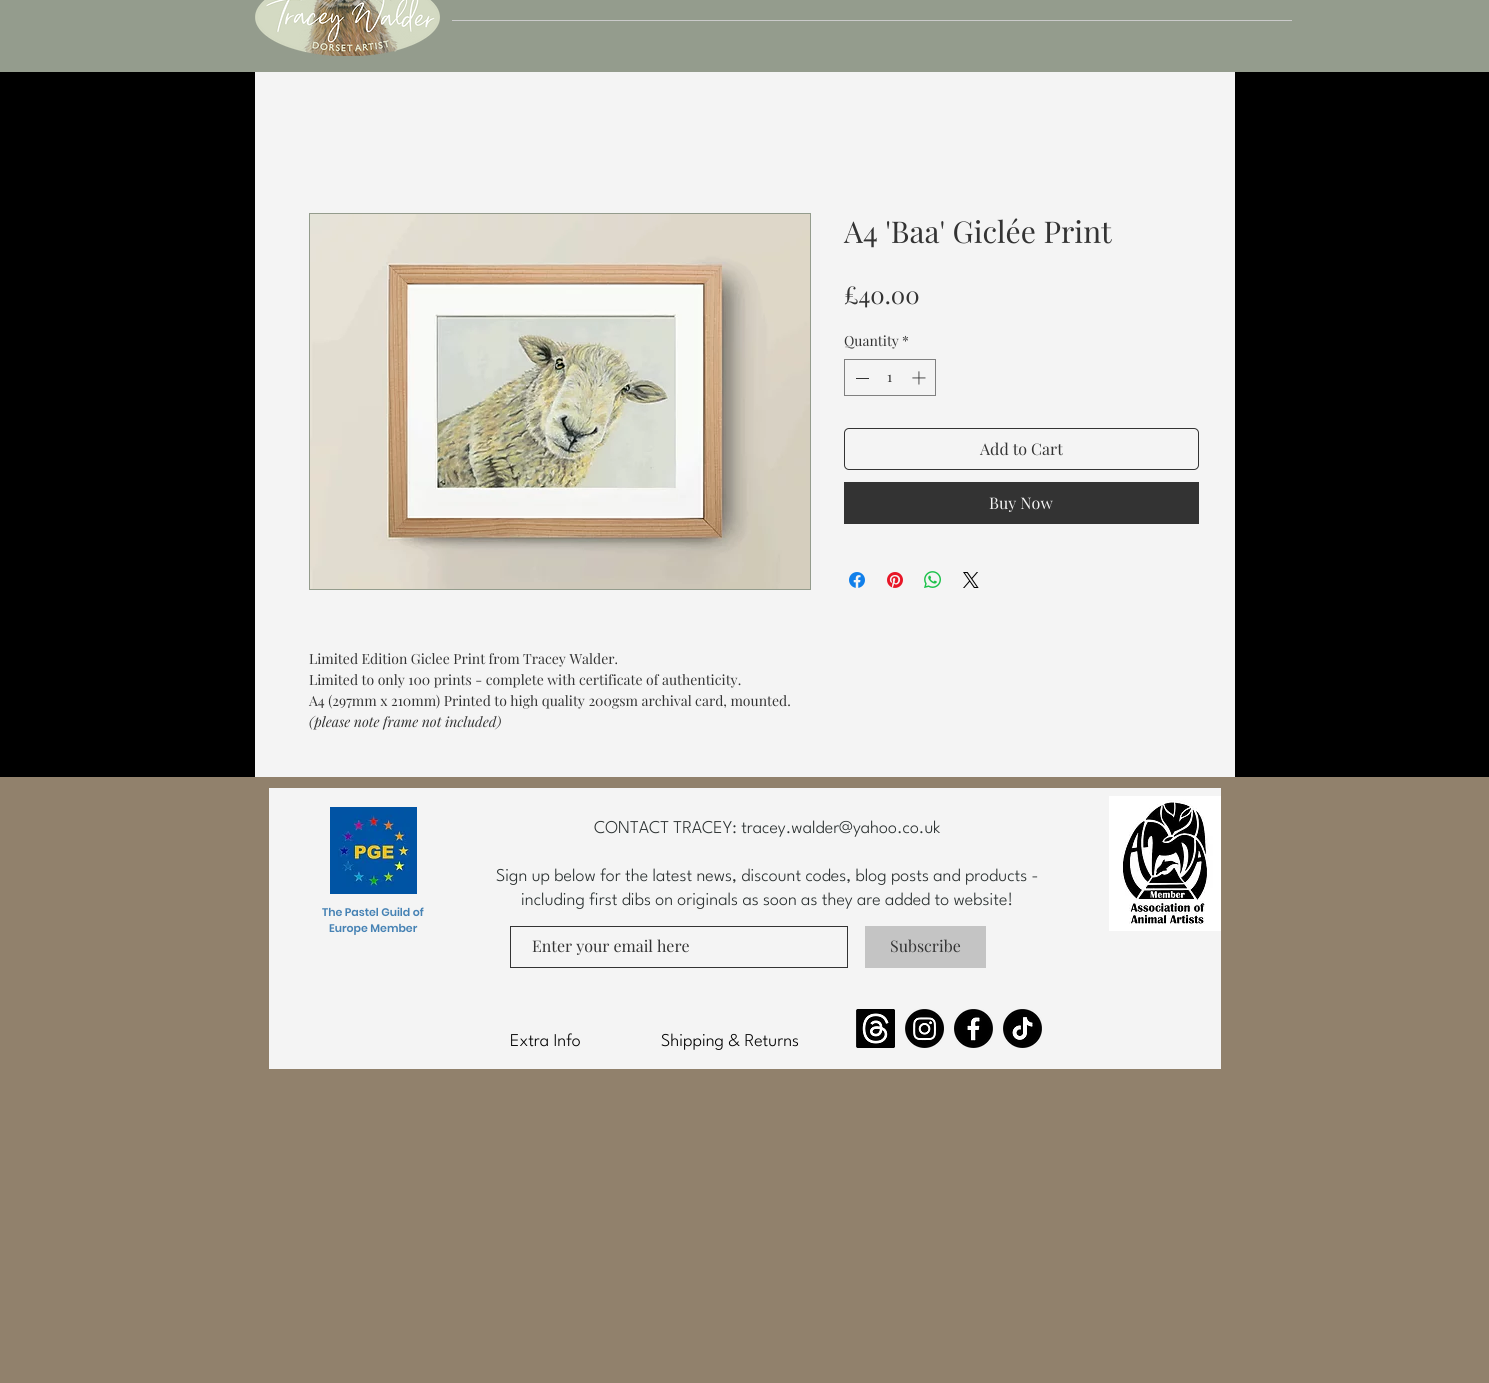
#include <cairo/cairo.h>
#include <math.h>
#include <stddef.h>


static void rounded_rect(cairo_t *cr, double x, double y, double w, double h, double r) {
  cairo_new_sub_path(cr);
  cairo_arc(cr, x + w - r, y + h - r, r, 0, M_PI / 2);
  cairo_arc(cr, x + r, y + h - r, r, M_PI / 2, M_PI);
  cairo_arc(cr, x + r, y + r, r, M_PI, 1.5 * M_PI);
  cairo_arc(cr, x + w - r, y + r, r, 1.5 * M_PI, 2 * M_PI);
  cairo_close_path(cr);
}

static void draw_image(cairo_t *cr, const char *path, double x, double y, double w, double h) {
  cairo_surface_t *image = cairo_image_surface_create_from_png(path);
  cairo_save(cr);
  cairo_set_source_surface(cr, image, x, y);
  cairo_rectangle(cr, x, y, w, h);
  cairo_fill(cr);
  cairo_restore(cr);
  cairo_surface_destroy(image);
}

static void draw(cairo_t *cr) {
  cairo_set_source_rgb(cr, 0, 0, 0);
  cairo_paint(cr);
  cairo_set_source_rgb(cr, 148 / 255.0, 156 / 255.0, 141 / 255.0);
  cairo_rectangle(cr, 0, 0, 1489, 72);
  cairo_fill(cr);
  draw_image(cr, "images/1.png", 255, 0, 185, 56);
  cairo_set_source_rgb(cr, 202 / 255.0, 202 / 255.0, 202 / 255.0);
  cairo_rectangle(cr, 452, 20, 840, 1);
  cairo_fill(cr);
  cairo_set_source_rgb(cr, 244 / 255.0, 244 / 255.0, 244 / 255.0);
  cairo_rectangle(cr, 255, 72, 980, 705);
  cairo_fill(cr);
  cairo_rectangle(cr, 844.5, 359.5, 91, 36);
  cairo_set_source_rgb(cr, 128 / 255.0, 128 / 255.0, 128 / 255.0);
  cairo_set_line_width(cr, 1);
  cairo_stroke(cr);
  cairo_set_source_rgb(cr, 51 / 255.0, 51 / 255.0, 51 / 255.0);
  cairo_rectangle(cr, 856, 378, 13, 1);
  cairo_fill(cr);
  draw_image(cr, "images/2.png", 912, 371, 14, 14);
  rounded_rect(cr, 844.5, 428.5, 354, 41, 4.5);
  cairo_stroke(cr);
  cairo_rectangle(cr, 844, 482, 355, 42);
  cairo_fill(cr);
  draw_image(cr, "images/3.png", 849, 572, 16, 16);
  draw_image(cr, "images/4.png", 887, 572, 16, 16);
  draw_image(cr, "images/5.png", 924, 571, 17, 17);
  draw_image(cr, "images/6.png", 963, 572, 16, 16);
  cairo_rectangle(cr, 309.5, 213.5, 501, 376);
  cairo_set_source_rgb(cr, 148 / 255.0, 156 / 255.0, 141 / 255.0);
  cairo_stroke(cr);
  draw_image(cr, "images/7.png", 310, 214, 500, 375);
  cairo_set_source_rgb(cr, 145 / 255.0, 129 / 255.0, 108 / 255.0);
  cairo_rectangle(cr, 0, 777, 1489, 606);
  cairo_fill(cr);
  cairo_set_source_rgb(cr, 244 / 255.0, 244 / 255.0, 244 / 255.0);
  cairo_rectangle(cr, 269, 788, 952, 281);
  cairo_fill(cr);
  draw_image(cr, "images/8.png", 330, 807, 87, 87);
  draw_image(cr, "images/9.png", 1109, 796, 112, 135);
  cairo_rectangle(cr, 510.5, 926.5, 337, 41);
  cairo_set_source_rgb(cr, 51 / 255.0, 51 / 255.0, 51 / 255.0);
  cairo_stroke(cr);
  cairo_set_source_rgb(cr, 196 / 255.0, 196 / 255.0, 196 / 255.0);
  cairo_rectangle(cr, 865, 926, 121, 42);
  cairo_fill(cr);
  draw_image(cr, "images/10.png", 856, 1009, 39, 39);
  draw_image(cr, "images/11.png", 905, 1009, 39, 39);
  draw_image(cr, "images/12.png", 954, 1009, 39, 39);
  draw_image(cr, "images/13.png", 1003, 1009, 39, 39);
  cairo_select_font_face(cr, "Playfair Display", CAIRO_FONT_SLANT_NORMAL, CAIRO_FONT_WEIGHT_NORMAL);
  cairo_set_font_size(cr, 30);
  cairo_set_source_rgb(cr, 51 / 255.0, 51 / 255.0, 51 / 255.0);
  cairo_move_to(cr, 844, 243);
  cairo_show_text(cr, "A4 'Baa' Giclée Print");
  cairo_set_font_size(cr, 24);
  cairo_move_to(cr, 844, 304);
  cairo_show_text(cr, "£40.00");
  cairo_set_font_size(cr, 14);
  cairo_move_to(cr, 844, 346);
  cairo_show_text(cr, "Quantity");
  cairo_move_to(cr, 902, 346);
  cairo_show_text(cr, "*");
  cairo_move_to(cr, 887, 382);
  cairo_show_text(cr, "1");
  cairo_set_font_size(cr, 16);
  cairo_move_to(cr, 980, 455);
  cairo_show_text(cr, "Add to Cart");
  cairo_set_source_rgb(cr, 244 / 255.0, 244 / 255.0, 244 / 255.0);
  cairo_move_to(cr, 989, 509);
  cairo_show_text(cr, "Buy Now");
  cairo_set_font_size(cr, 14);
  cairo_set_source_rgb(cr, 51 / 255.0, 51 / 255.0, 51 / 255.0);
  cairo_move_to(cr, 309, 664);
  cairo_show_text(cr, "Limited Edition Giclee Print from Tracey Walder.");
  cairo_move_to(cr, 309, 685);
  cairo_show_text(cr, "Limited to only 100 prints - complete with certificate of authenticity.");
  cairo_move_to(cr, 309, 706);
  cairo_show_text(cr, "A4 (297mm x 210mm) Printed to high quality 200gsm archival card, mounted.");
  cairo_select_font_face(cr, "Playfair Display", CAIRO_FONT_SLANT_ITALIC, CAIRO_FONT_WEIGHT_NORMAL);
  cairo_move_to(cr, 309, 727);
  cairo_show_text(cr, "(please note frame not included)");
  cairo_select_font_face(cr, "League Spartan Thin", CAIRO_FONT_SLANT_NORMAL, CAIRO_FONT_WEIGHT_NORMAL);
  cairo_set_font_size(cr, 18);
  cairo_set_source_rgb(cr, 41 / 255.0, 47 / 255.0, 47 / 255.0);
  cairo_move_to(cr, 594, 833);
  cairo_show_text(cr, "CONTACT TRACEY: tracey.walder@yahoo.co.uk");
  cairo_move_to(cr, 496, 881);
  cairo_show_text(cr, "Sign up below for the latest news, discount codes, blog posts and products -");
  cairo_move_to(cr, 521, 905);
  cairo_show_text(cr, "including first dibs on originals as soon as they are added to website!");
  cairo_select_font_face(cr, "Poppins SemiBold", CAIRO_FONT_SLANT_NORMAL, CAIRO_FONT_WEIGHT_NORMAL);
  cairo_set_font_size(cr, 11);
  cairo_set_source_rgb(cr, 70 / 255.0, 130 / 255.0, 180 / 255.0);
  cairo_move_to(cr, 322, 916);
  cairo_show_text(cr, "The Pastel Guild of");
  cairo_move_to(cr, 329, 932);
  cairo_show_text(cr, "Europe Member");
  cairo_select_font_face(cr, "Playfair Display", CAIRO_FONT_SLANT_NORMAL, CAIRO_FONT_WEIGHT_NORMAL);
  cairo_set_font_size(cr, 16);
  cairo_set_source_rgb(cr, 51 / 255.0, 51 / 255.0, 51 / 255.0);
  cairo_move_to(cr, 532, 952);
  cairo_show_text(cr, "Enter your email here");
  cairo_move_to(cr, 890, 952);
  cairo_show_text(cr, "Subscribe");
  cairo_select_font_face(cr, "League Spartan Thin", CAIRO_FONT_SLANT_NORMAL, CAIRO_FONT_WEIGHT_NORMAL);
  cairo_set_font_size(cr, 18);
  cairo_set_source_rgb(cr, 0, 0, 0);
  cairo_move_to(cr, 510, 1046);
  cairo_show_text(cr, "Extra Info");
  cairo_move_to(cr, 661, 1046);
  cairo_show_text(cr, "Shipping & Returns");
}

int main(void) {
  cairo_surface_t *surface = cairo_image_surface_create(CAIRO_FORMAT_RGB24, 1489, 1383);
  cairo_t *cr = cairo_create(surface);
  cairo_font_options_t *options = cairo_font_options_create();
  cairo_font_options_set_hint_metrics(options, CAIRO_HINT_METRICS_OFF);
  cairo_font_options_set_hint_style(options, CAIRO_HINT_STYLE_NONE);
  cairo_set_font_options(cr, options);
  cairo_set_miter_limit(cr, 4);
  draw(cr);
  cairo_surface_write_to_png(surface, "out.png");
  cairo_font_options_destroy(options);
  cairo_destroy(cr);
  cairo_surface_destroy(surface);
  return 0;
}
